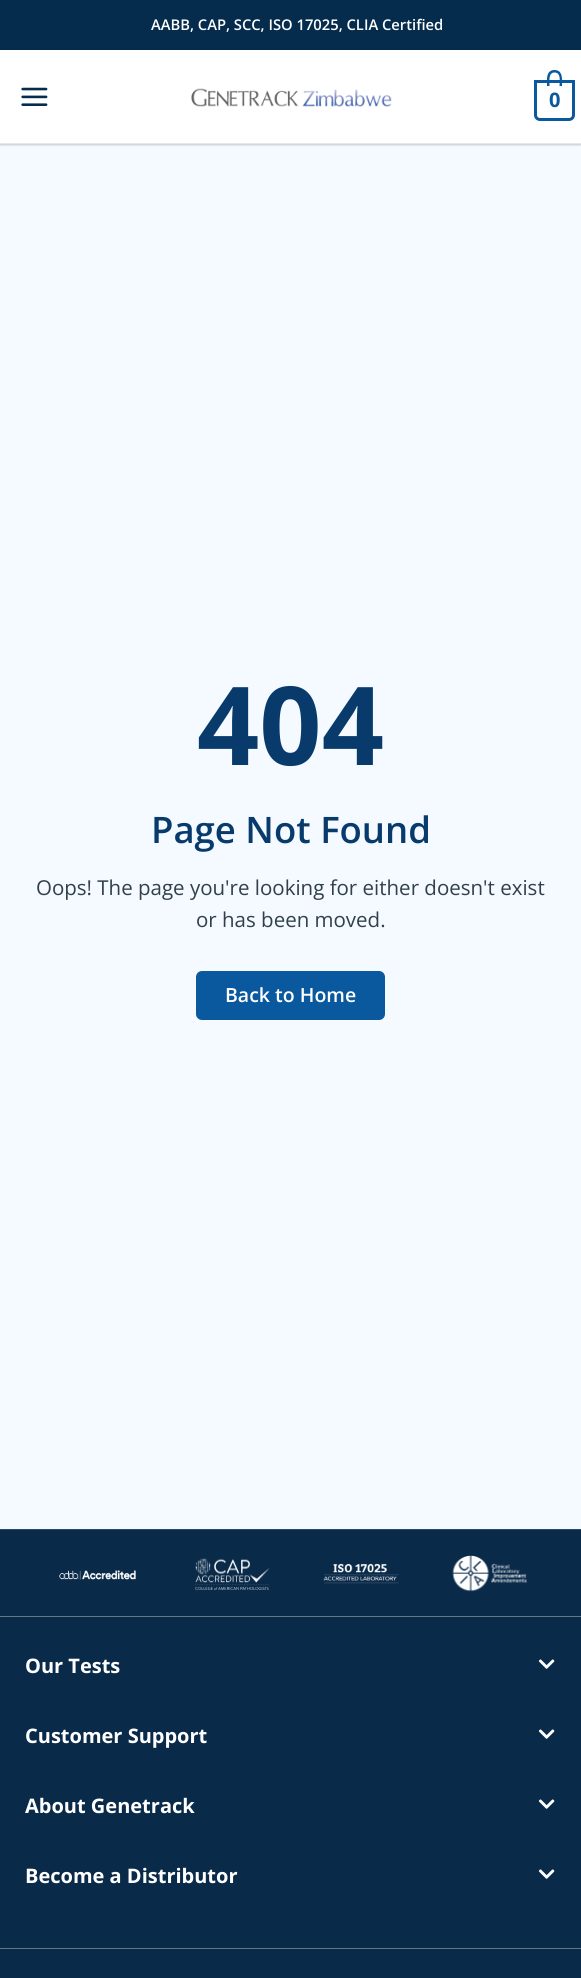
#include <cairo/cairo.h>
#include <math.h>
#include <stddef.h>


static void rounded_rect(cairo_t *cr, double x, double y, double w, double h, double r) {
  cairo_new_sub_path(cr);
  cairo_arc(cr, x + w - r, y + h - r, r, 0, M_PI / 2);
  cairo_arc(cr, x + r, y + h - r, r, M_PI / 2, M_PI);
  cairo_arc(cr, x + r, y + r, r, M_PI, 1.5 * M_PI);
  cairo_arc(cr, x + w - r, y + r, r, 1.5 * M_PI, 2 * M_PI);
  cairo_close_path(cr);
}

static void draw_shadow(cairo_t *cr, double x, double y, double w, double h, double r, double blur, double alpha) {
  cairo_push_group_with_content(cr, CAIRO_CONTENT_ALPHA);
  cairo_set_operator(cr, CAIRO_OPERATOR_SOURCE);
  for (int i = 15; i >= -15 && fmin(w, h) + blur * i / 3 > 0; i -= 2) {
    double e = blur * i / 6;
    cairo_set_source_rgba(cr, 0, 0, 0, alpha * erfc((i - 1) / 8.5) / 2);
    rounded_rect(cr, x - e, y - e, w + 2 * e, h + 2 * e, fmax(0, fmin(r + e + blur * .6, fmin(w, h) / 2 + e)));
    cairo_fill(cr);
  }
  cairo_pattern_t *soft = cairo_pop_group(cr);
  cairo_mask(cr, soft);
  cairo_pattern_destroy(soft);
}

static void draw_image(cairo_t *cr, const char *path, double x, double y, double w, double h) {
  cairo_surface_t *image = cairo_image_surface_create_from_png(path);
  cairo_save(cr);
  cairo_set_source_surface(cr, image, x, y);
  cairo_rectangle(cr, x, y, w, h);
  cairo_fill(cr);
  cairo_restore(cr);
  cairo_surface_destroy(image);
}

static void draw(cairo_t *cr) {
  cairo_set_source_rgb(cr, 244 / 255.0, 250 / 255.0, 1);
  cairo_paint(cr);
  cairo_set_source_rgb(cr, 5 / 255.0, 44 / 255.0, 76 / 255.0);
  cairo_rectangle(cr, 0, 0, 581, 50);
  cairo_fill(cr);
  cairo_set_source_rgb(cr, 0, 0, 0);
  draw_shadow(cr, 0, 51, 581, 94, 0, 1, 0.2);
  cairo_set_source_rgb(cr, 1, 1, 1);
  cairo_rectangle(cr, 0, 50, 581, 93);
  cairo_fill(cr);
  cairo_set_source_rgb(cr, 230 / 255.0, 231 / 255.0, 232 / 255.0);
  cairo_rectangle(cr, 0, 143, 581, 1);
  cairo_fill(cr);
  draw_image(cr, "images/1.png", 21, 87, 27, 19);
  draw_image(cr, "images/2.png", 191, 88, 201, 19);
  cairo_new_path(cr);
  cairo_move_to(cr, 535.5, 81.5);
  cairo_line_to(cr, 573.5, 81.5);
  cairo_line_to(cr, 573.5, 115);
  cairo_curve_to(cr, 573.5, 117.5, 571.5, 119.5, 569, 119.5);
  cairo_line_to(cr, 540, 119.5);
  cairo_curve_to(cr, 537.5, 119.5, 535.5, 117.5, 535.5, 115);
  cairo_close_path(cr);
  cairo_set_source_rgb(cr, 10 / 255.0, 88 / 255.0, 158 / 255.0);
  cairo_set_line_width(cr, 3);
  cairo_stroke(cr);
  cairo_set_fill_rule(cr, CAIRO_FILL_RULE_EVEN_ODD);
  cairo_new_path(cr);
  cairo_move_to(cr, 554.5, 70);
  cairo_curve_to(cr, 563.5, 70, 562, 80.5, 562, 86);
  cairo_line_to(cr, 547, 86);
  cairo_curve_to(cr, 547, 80.5, 545.5, 70, 554.5, 70);
  cairo_close_path(cr);
  cairo_move_to(cr, 554.5, 72.5);
  cairo_curve_to(cr, 561.5, 72.5, 559.5, 82, 559.5, 86);
  cairo_line_to(cr, 549.5, 86);
  cairo_curve_to(cr, 549.5, 82, 548, 72.5, 554.5, 72.5);
  cairo_close_path(cr);
  cairo_fill(cr);
  rounded_rect(cr, 196, 971, 189, 49, 6);
  cairo_fill(cr);
  cairo_set_source_rgb(cr, 10 / 255.0, 42 / 255.0, 73 / 255.0);
  cairo_rectangle(cr, 0, 1530, 581, 86);
  cairo_fill(cr);
  cairo_set_source_rgb(cr, 45 / 255.0, 73 / 255.0, 100 / 255.0);
  cairo_rectangle(cr, 0, 1529, 581, 1);
  cairo_fill(cr);
  draw_image(cr, "images/3.png", 59, 1570, 77, 10);
  draw_image(cr, "images/4.png", 195, 1558, 75, 32);
  draw_image(cr, "images/5.png", 323, 1563, 76, 21);
  draw_image(cr, "images/6.png", 452, 1555, 75, 37);
  cairo_set_source_rgb(cr, 10 / 255.0, 42 / 255.0, 73 / 255.0);
  cairo_rectangle(cr, 0, 1617, 581, 331);
  cairo_fill(cr);
  cairo_set_source_rgb(cr, 97 / 255.0, 119 / 255.0, 140 / 255.0);
  cairo_rectangle(cr, 0, 1616, 581, 1);
  cairo_fill(cr);
  cairo_rectangle(cr, 0, 1948, 581, 1);
  cairo_fill(cr);
  draw_image(cr, "images/7.png", 538, 1659, 17, 10);
  draw_image(cr, "images/7.png", 538, 1729, 17, 10);
  draw_image(cr, "images/7.png", 538, 1799, 17, 10);
  draw_image(cr, "images/7.png", 538, 1869, 17, 10);
  cairo_set_source_rgb(cr, 10 / 255.0, 42 / 255.0, 73 / 255.0);
  cairo_rectangle(cr, 0, 1949, 581, 29);
  cairo_fill(cr);
  cairo_select_font_face(cr, "Open Sans SemiBold", CAIRO_FONT_SLANT_NORMAL, CAIRO_FONT_WEIGHT_NORMAL);
  cairo_set_font_size(cr, 14.75);
  cairo_set_source_rgb(cr, 1, 1, 1);
  cairo_move_to(cr, 151, 30);
  cairo_show_text(cr, "AABB, CAP, SCC, ISO 17025, CLIA Certified");
  cairo_select_font_face(cr, "Open Sans", CAIRO_FONT_SLANT_NORMAL, CAIRO_FONT_WEIGHT_BOLD);
  cairo_set_font_size(cr, 20);
  cairo_set_source_rgb(cr, 10 / 255.0, 88 / 255.0, 158 / 255.0);
  cairo_move_to(cr, 549, 107);
  cairo_show_text(cr, "0");
  cairo_set_font_size(cr, 109);
  cairo_set_source_rgb(cr, 8 / 255.0, 59 / 255.0, 107 / 255.0);
  cairo_move_to(cr, 197, 765);
  cairo_show_text(cr, "404");
  cairo_select_font_face(cr, "Open Sans SemiBold", CAIRO_FONT_SLANT_NORMAL, CAIRO_FONT_WEIGHT_NORMAL);
  cairo_set_font_size(cr, 36.5);
  cairo_move_to(cr, 151, 843);
  cairo_show_text(cr, "Page Not Found");
  cairo_select_font_face(cr, "Open Sans", CAIRO_FONT_SLANT_NORMAL, CAIRO_FONT_WEIGHT_NORMAL);
  cairo_set_font_size(cr, 20.5);
  cairo_set_source_rgb(cr, 50 / 255.0, 64 / 255.0, 74 / 255.0);
  cairo_move_to(cr, 36, 895);
  cairo_show_text(cr, "Oops! The page you're looking for either doesn't exist");
  cairo_move_to(cr, 196, 927);
  cairo_show_text(cr, "or has been moved.");
  cairo_select_font_face(cr, "Open Sans SemiBold", CAIRO_FONT_SLANT_NORMAL, CAIRO_FONT_WEIGHT_NORMAL);
  cairo_set_font_size(cr, 19.5);
  cairo_set_source_rgb(cr, 1, 1, 1);
  cairo_move_to(cr, 225, 1002);
  cairo_show_text(cr, "Back to Home");
  cairo_select_font_face(cr, "Open Sans", CAIRO_FONT_SLANT_NORMAL, CAIRO_FONT_WEIGHT_BOLD);
  cairo_set_font_size(cr, 20);
  cairo_move_to(cr, 25, 1673);
  cairo_show_text(cr, "Our Tests");
  cairo_move_to(cr, 25, 1743);
  cairo_show_text(cr, "Customer Support");
  cairo_move_to(cr, 25, 1813);
  cairo_show_text(cr, "About Genetrack");
  cairo_move_to(cr, 25, 1883);
  cairo_show_text(cr, "Become a Distributor");
}

int main(void) {
  cairo_surface_t *surface = cairo_image_surface_create(CAIRO_FORMAT_RGB24, 581, 1978);
  cairo_t *cr = cairo_create(surface);
  cairo_font_options_t *options = cairo_font_options_create();
  cairo_font_options_set_hint_metrics(options, CAIRO_HINT_METRICS_OFF);
  cairo_font_options_set_hint_style(options, CAIRO_HINT_STYLE_NONE);
  cairo_set_font_options(cr, options);
  cairo_set_miter_limit(cr, 4);
  draw(cr);
  cairo_surface_write_to_png(surface, "out.png");
  cairo_font_options_destroy(options);
  cairo_destroy(cr);
  cairo_surface_destroy(surface);
  return 0;
}
